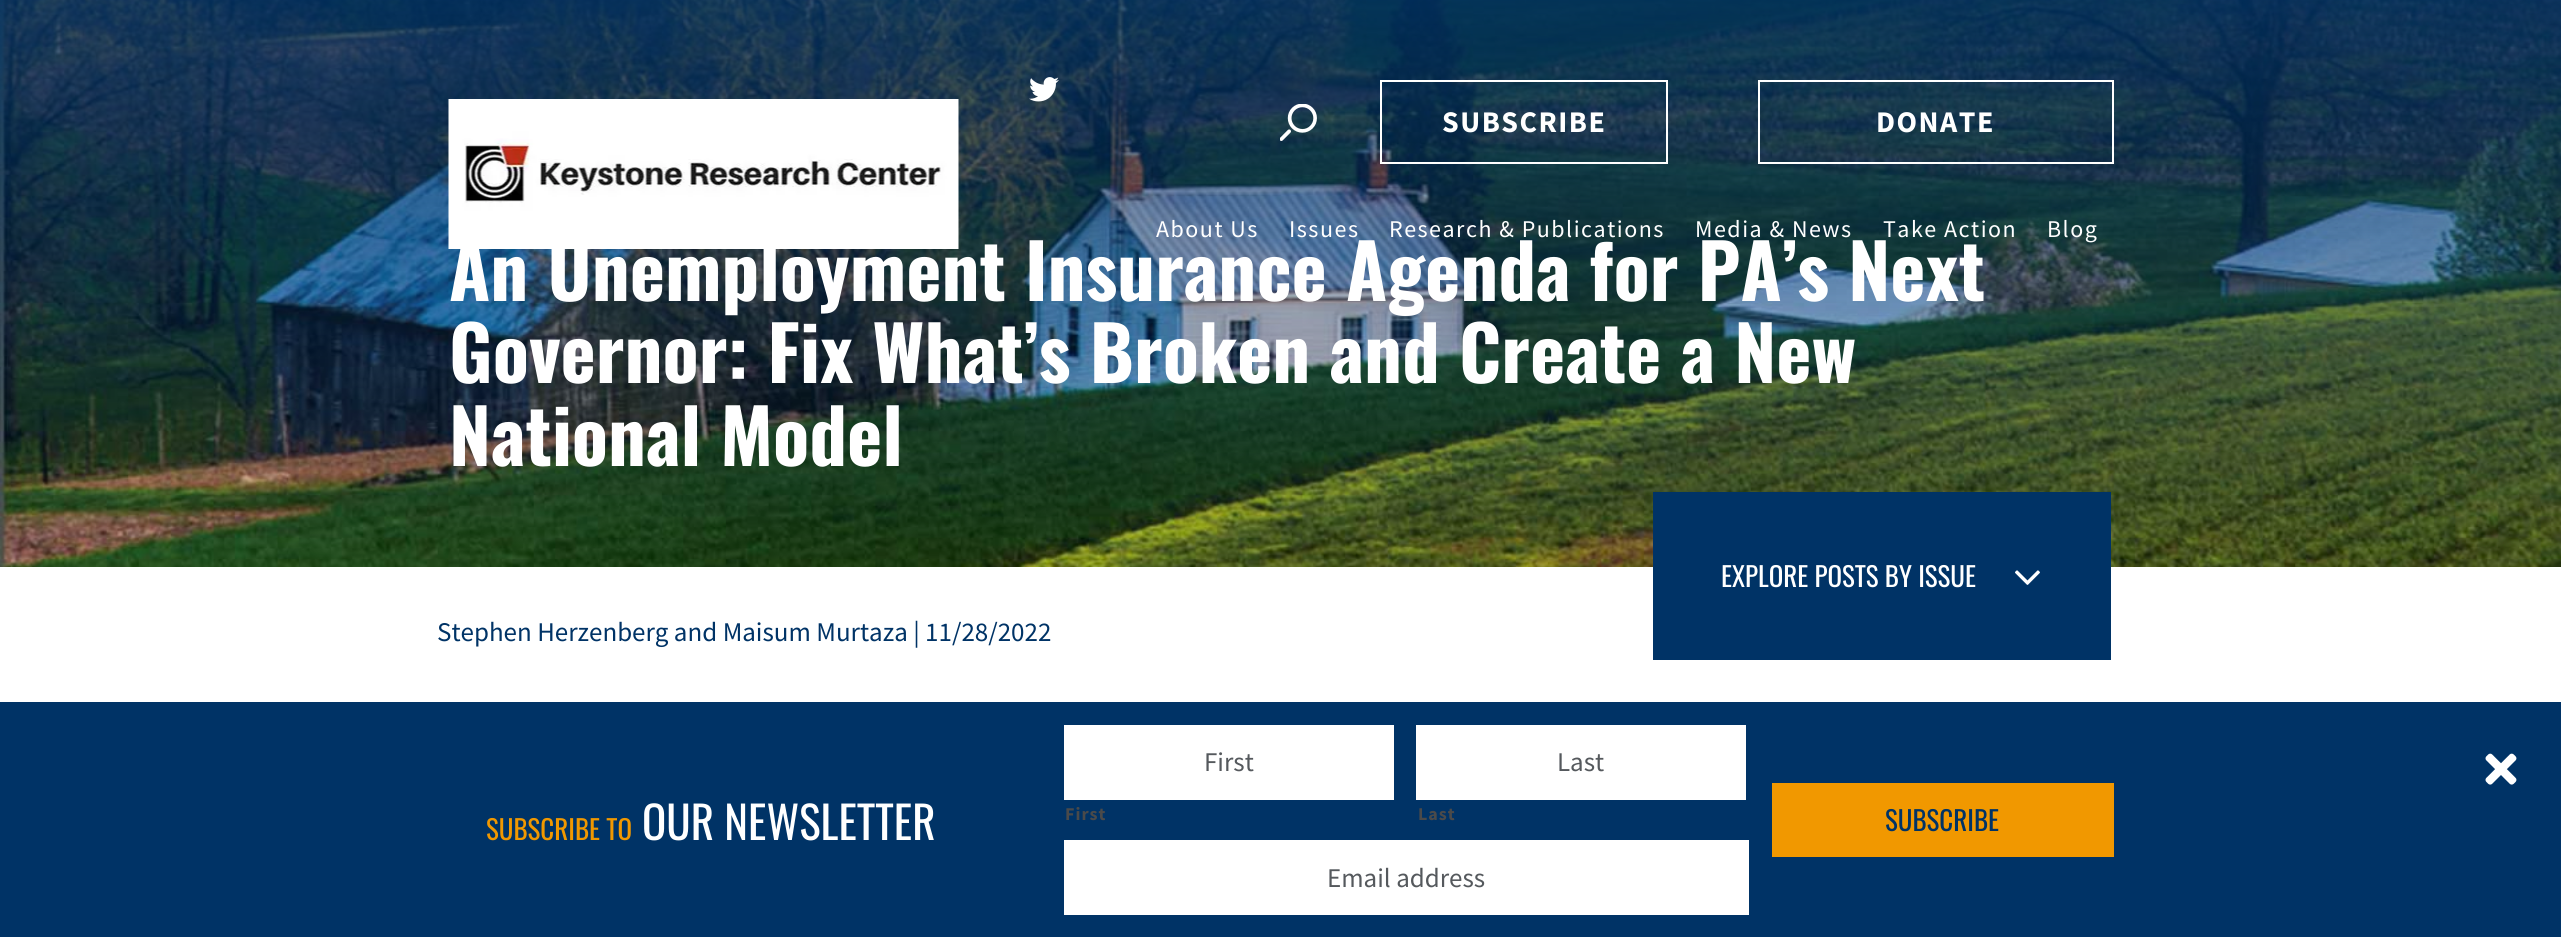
#include <cairo/cairo.h>
#include <math.h>
#include <stddef.h>


static void draw_spaced(cairo_t *cr, double x, double y, const char *s, double letter, double word) {
  cairo_move_to(cr, x, y);
  while (*s) {
    char ch[5] = {0};
    int n = 0;
    do ch[n++] = *s++; while ((*s & 0xC0) == 0x80);
    cairo_show_text(cr, ch);
    cairo_rel_move_to(cr, letter + word * (*ch == ' '), 0);
  }
}

static void draw_image(cairo_t *cr, const char *path, double x, double y, double w, double h) {
  cairo_surface_t *image = cairo_image_surface_create_from_png(path);
  cairo_save(cr);
  cairo_set_source_surface(cr, image, x, y);
  cairo_rectangle(cr, x, y, w, h);
  cairo_fill(cr);
  cairo_restore(cr);
  cairo_surface_destroy(image);
}

static void draw(cairo_t *cr) {
  cairo_set_source_rgb(cr, 1, 1, 1);
  cairo_paint(cr);
  draw_image(cr, "images/4.png", 0, 0, 2561, 567);
  draw_image(cr, "images/2.png", 1029, 77, 30, 25);
  draw_image(cr, "images/3.png", 1280, 104, 37, 37);
  cairo_rectangle(cr, 1381, 81, 286, 82);
  cairo_set_source_rgb(cr, 1, 1, 1);
  cairo_stroke(cr);
  cairo_rectangle(cr, 1759, 81, 354, 82);
  cairo_stroke(cr);
  cairo_set_source_rgb(cr, 0, 51 / 255.0, 102 / 255.0);
  cairo_rectangle(cr, 1653, 492, 458, 168);
  cairo_fill(cr);
  draw_image(cr, "images/5.png", 2015, 570, 25, 15);
  cairo_rectangle(cr, 0, 702, 2561, 235);
  cairo_fill(cr);
  cairo_set_source_rgb(cr, 1, 1, 1);
  cairo_rectangle(cr, 1064, 725, 330, 75);
  cairo_fill(cr);
  cairo_rectangle(cr, 1416, 725, 330, 75);
  cairo_fill(cr);
  cairo_rectangle(cr, 1064, 840, 685, 75);
  cairo_fill(cr);
  cairo_set_source_rgb(cr, 241 / 255.0, 152 / 255.0, 0);
  cairo_rectangle(cr, 1772, 783, 342, 74);
  cairo_fill(cr);
  draw_image(cr, "images/6.png", 2485, 753, 32, 32);
  cairo_select_font_face(cr, "Source Sans Pro", CAIRO_FONT_SLANT_NORMAL, CAIRO_FONT_WEIGHT_BOLD);
  cairo_set_font_size(cr, 30);
  cairo_set_source_rgb(cr, 1, 1, 1);
  draw_spaced(cr, 1442, 132, "SUBSCRIBE", 1.5, 0);
  draw_spaced(cr, 1876, 132, "DONATE", 1.5, 0);
  cairo_select_font_face(cr, "Source Sans Pro", CAIRO_FONT_SLANT_NORMAL, CAIRO_FONT_WEIGHT_NORMAL);
  cairo_set_font_size(cr, 24);
  draw_spaced(cr, 1156, 237, "About Us", 1.5, 0);
  draw_spaced(cr, 1289, 237, "Issues", 1.5, 0);
  draw_spaced(cr, 1389, 237, "Research & Publications", 1.5, 0);
  draw_spaced(cr, 1695, 237, "Media & News", 1.5, 0);
  draw_spaced(cr, 1883, 237, "Take Action", 1.5, 0);
  draw_spaced(cr, 2047, 237, "Blog", 1.5, 0);
  cairo_select_font_face(cr, "Oswald", CAIRO_FONT_SLANT_NORMAL, CAIRO_FONT_WEIGHT_BOLD);
  cairo_set_font_size(cr, 75);
  cairo_move_to(cr, 449, 301);
  cairo_show_text(cr, "An Unemployment Insurance Agenda for PA’s Next");
  draw_image(cr, "images/1.png", 448, 99, 511, 150);
  cairo_move_to(cr, 449, 383);
  cairo_show_text(cr, "Governor: Fix What’s Broken and Create a New");
  cairo_move_to(cr, 449, 466);
  cairo_show_text(cr, "National Model");
  cairo_select_font_face(cr, "Oswald", CAIRO_FONT_SLANT_NORMAL, CAIRO_FONT_WEIGHT_NORMAL);
  cairo_set_font_size(cr, 27);
  cairo_move_to(cr, 1721, 587);
  cairo_show_text(cr, "EXPLORE POSTS BY ISSUE");
  cairo_select_font_face(cr, "Source Sans Pro", CAIRO_FONT_SLANT_NORMAL, CAIRO_FONT_WEIGHT_NORMAL);
  cairo_set_source_rgb(cr, 0, 51 / 255.0, 102 / 255.0);
  cairo_move_to(cr, 437, 641);
  cairo_show_text(cr, "Stephen Herzenberg and Maisum Murtaza | 11/28/2022");
  cairo_select_font_face(cr, "Oswald", CAIRO_FONT_SLANT_NORMAL, CAIRO_FONT_WEIGHT_NORMAL);
  cairo_set_source_rgb(cr, 241 / 255.0, 152 / 255.0, 0);
  cairo_move_to(cr, 486, 840);
  cairo_show_text(cr, "SUBSCRIBE TO");
  cairo_set_font_size(cr, 45);
  cairo_set_source_rgb(cr, 1, 1, 1);
  cairo_move_to(cr, 642, 840);
  cairo_show_text(cr, "OUR NEWSLETTER");
  cairo_select_font_face(cr, "Source Sans Pro", CAIRO_FONT_SLANT_NORMAL, CAIRO_FONT_WEIGHT_NORMAL);
  cairo_set_font_size(cr, 27);
  cairo_set_source_rgb(cr, 85 / 255.0, 89 / 255.0, 93 / 255.0);
  cairo_move_to(cr, 1204, 771);
  cairo_show_text(cr, "First");
  cairo_select_font_face(cr, "Source Sans Pro", CAIRO_FONT_SLANT_NORMAL, CAIRO_FONT_WEIGHT_BOLD);
  cairo_set_font_size(cr, 18);
  cairo_set_source_rgb(cr, 74 / 255.0, 74 / 255.0, 74 / 255.0);
  draw_spaced(cr, 1065, 820, "First", 1, 0);
  cairo_select_font_face(cr, "Source Sans Pro", CAIRO_FONT_SLANT_NORMAL, CAIRO_FONT_WEIGHT_NORMAL);
  cairo_set_font_size(cr, 27);
  cairo_set_source_rgb(cr, 85 / 255.0, 89 / 255.0, 93 / 255.0);
  cairo_move_to(cr, 1557, 771);
  cairo_show_text(cr, "Last");
  cairo_select_font_face(cr, "Source Sans Pro", CAIRO_FONT_SLANT_NORMAL, CAIRO_FONT_WEIGHT_BOLD);
  cairo_set_font_size(cr, 18);
  cairo_set_source_rgb(cr, 74 / 255.0, 74 / 255.0, 74 / 255.0);
  draw_spaced(cr, 1418, 820, "Last", 1, 0);
  cairo_select_font_face(cr, "Source Sans Pro", CAIRO_FONT_SLANT_NORMAL, CAIRO_FONT_WEIGHT_NORMAL);
  cairo_set_font_size(cr, 27);
  cairo_set_source_rgb(cr, 85 / 255.0, 89 / 255.0, 93 / 255.0);
  cairo_move_to(cr, 1327, 887);
  cairo_show_text(cr, "Email address");
  cairo_select_font_face(cr, "Oswald", CAIRO_FONT_SLANT_NORMAL, CAIRO_FONT_WEIGHT_NORMAL);
  cairo_set_source_rgb(cr, 0, 51 / 255.0, 102 / 255.0);
  cairo_move_to(cr, 1885, 831);
  cairo_show_text(cr, "SUBSCRIBE");
}

int main(void) {
  cairo_surface_t *surface = cairo_image_surface_create(CAIRO_FORMAT_RGB24, 2561, 937);
  cairo_t *cr = cairo_create(surface);
  cairo_font_options_t *options = cairo_font_options_create();
  cairo_font_options_set_hint_metrics(options, CAIRO_HINT_METRICS_OFF);
  cairo_font_options_set_hint_style(options, CAIRO_HINT_STYLE_NONE);
  cairo_set_font_options(cr, options);
  cairo_set_miter_limit(cr, 4);
  draw(cr);
  cairo_surface_write_to_png(surface, "out.png");
  cairo_font_options_destroy(options);
  cairo_destroy(cr);
  cairo_surface_destroy(surface);
  return 0;
}
